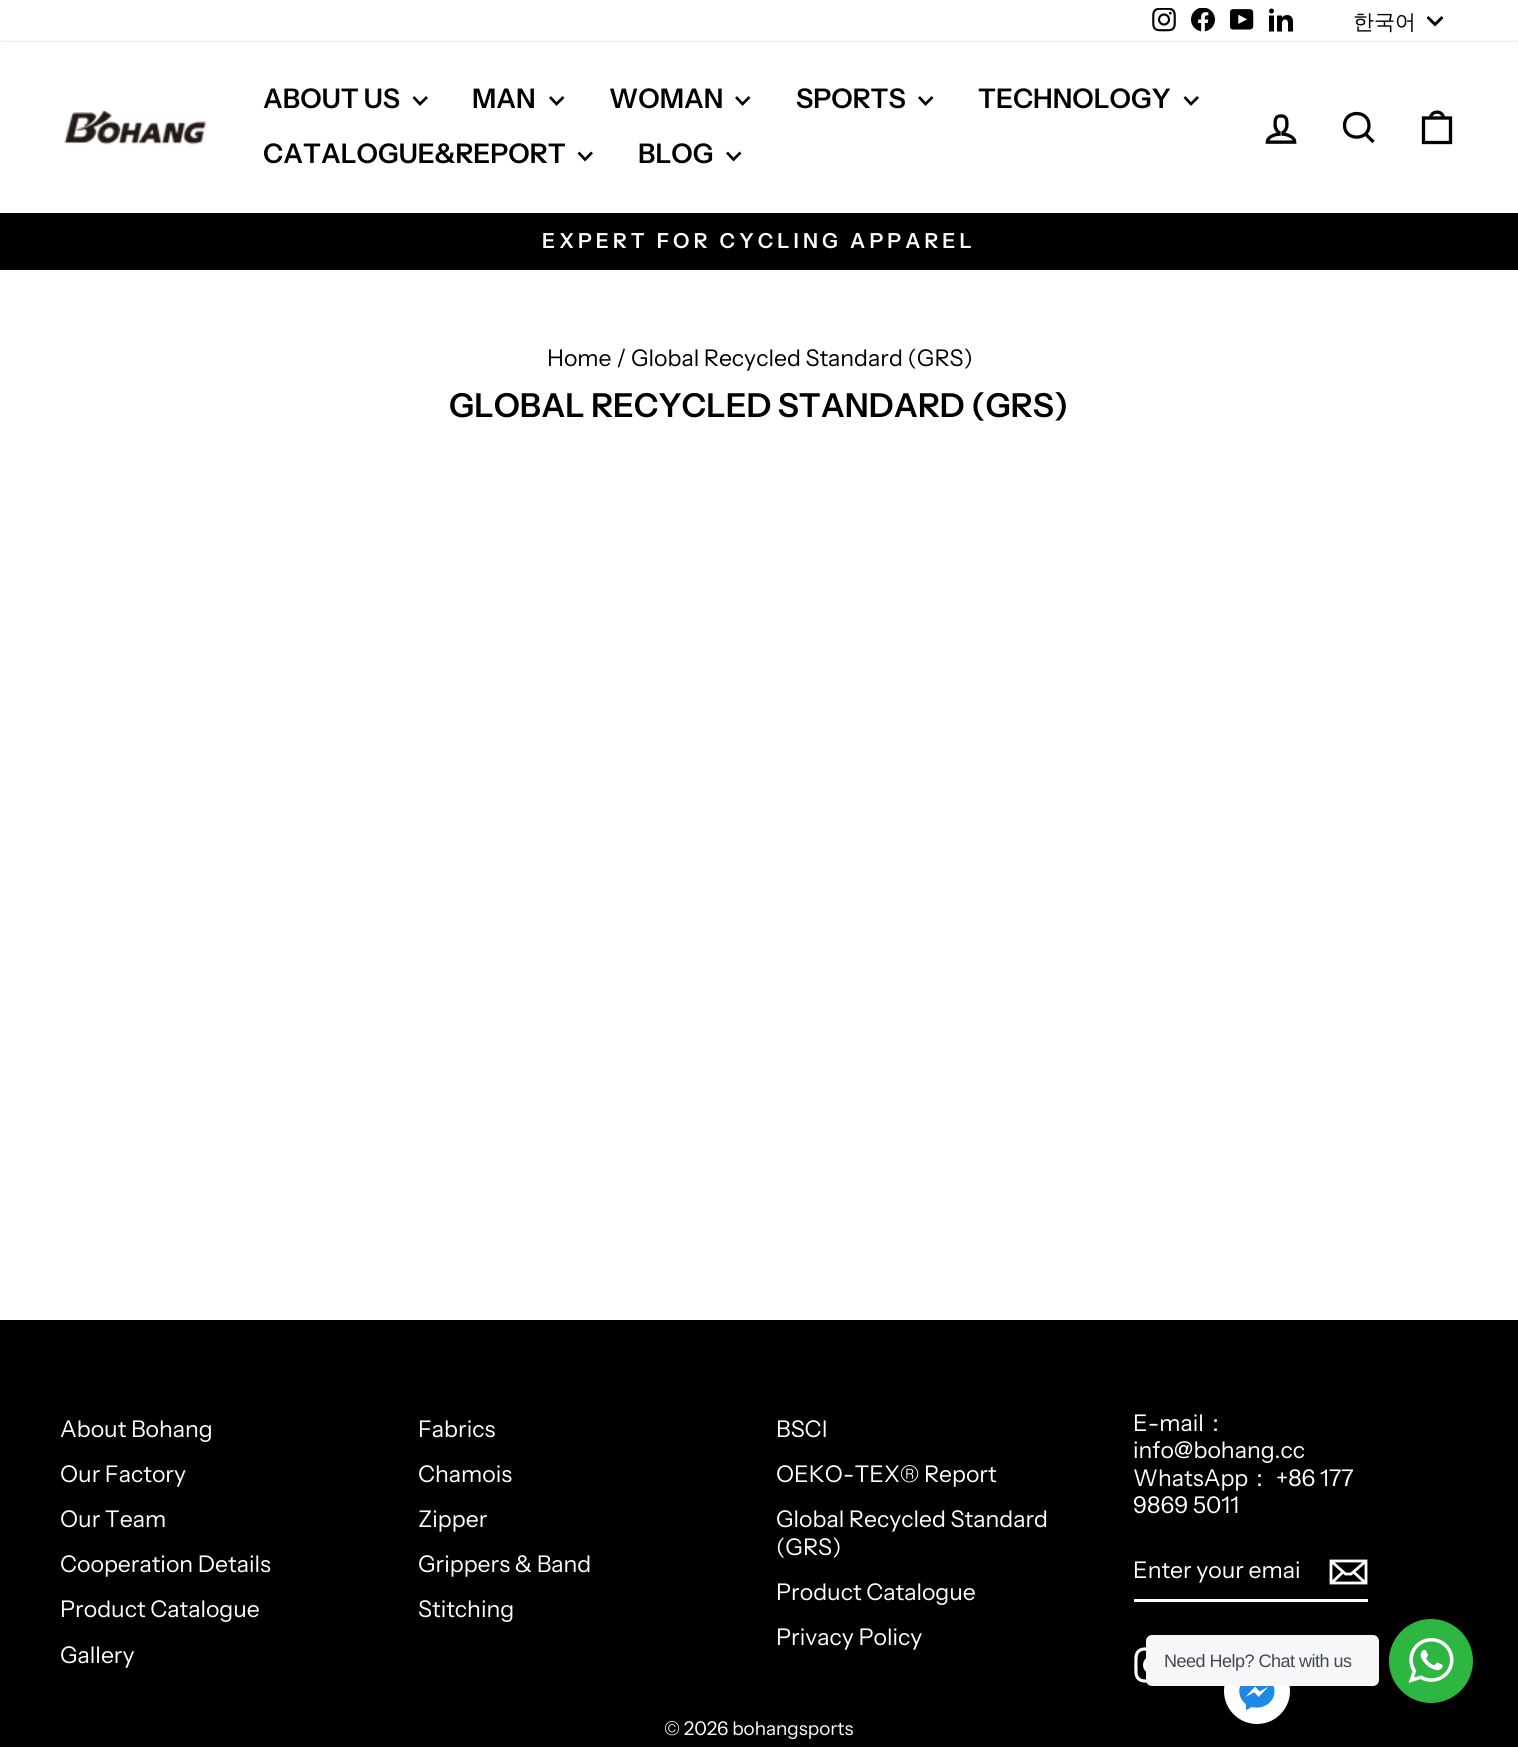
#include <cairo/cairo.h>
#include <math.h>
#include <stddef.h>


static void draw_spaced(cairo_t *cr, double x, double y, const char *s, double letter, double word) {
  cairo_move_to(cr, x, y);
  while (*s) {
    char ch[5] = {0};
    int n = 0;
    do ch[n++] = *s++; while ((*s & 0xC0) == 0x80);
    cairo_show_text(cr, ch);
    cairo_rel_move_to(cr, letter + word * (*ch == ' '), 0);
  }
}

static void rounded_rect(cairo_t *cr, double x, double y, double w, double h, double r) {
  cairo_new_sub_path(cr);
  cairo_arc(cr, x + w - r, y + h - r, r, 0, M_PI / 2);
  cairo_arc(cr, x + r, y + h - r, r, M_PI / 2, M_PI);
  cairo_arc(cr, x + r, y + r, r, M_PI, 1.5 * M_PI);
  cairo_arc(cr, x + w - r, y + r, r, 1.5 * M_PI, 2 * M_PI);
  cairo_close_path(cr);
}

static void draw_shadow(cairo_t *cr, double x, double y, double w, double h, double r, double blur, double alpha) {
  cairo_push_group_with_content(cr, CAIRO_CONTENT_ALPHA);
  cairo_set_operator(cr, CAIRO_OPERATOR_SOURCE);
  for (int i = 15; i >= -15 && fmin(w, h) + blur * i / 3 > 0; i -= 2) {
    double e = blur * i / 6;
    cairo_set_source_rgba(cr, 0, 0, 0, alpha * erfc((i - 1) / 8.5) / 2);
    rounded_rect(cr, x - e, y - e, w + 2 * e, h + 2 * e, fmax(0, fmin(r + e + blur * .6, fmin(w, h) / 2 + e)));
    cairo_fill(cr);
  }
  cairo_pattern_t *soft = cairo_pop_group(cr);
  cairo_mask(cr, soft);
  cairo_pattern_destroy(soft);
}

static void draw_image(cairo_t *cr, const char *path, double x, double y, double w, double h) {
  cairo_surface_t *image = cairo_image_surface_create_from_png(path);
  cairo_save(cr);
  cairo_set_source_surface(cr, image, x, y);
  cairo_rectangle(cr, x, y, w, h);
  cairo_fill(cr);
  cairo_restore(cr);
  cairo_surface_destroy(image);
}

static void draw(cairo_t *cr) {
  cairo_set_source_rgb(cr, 1, 1, 1);
  cairo_paint(cr);
  draw_image(cr, "images/1.png", 1152, 8, 24, 24);
  draw_image(cr, "images/2.png", 1191, 8, 24, 24);
  draw_image(cr, "images/3.png", 1230, 9, 24, 21);
  draw_image(cr, "images/4.png", 1269, 8, 24, 24);
  cairo_save(cr);
  cairo_rectangle(cr, 1427, 14, 16, 16);
  cairo_clip(cr);
  cairo_new_path(cr);
  cairo_move_to(cr, 1427.5, 17);
  cairo_line_to(cr, 1435, 24.5);
  cairo_line_to(cr, 1442.5, 17);
  cairo_set_source_rgb(cr, 0, 0, 0);
  cairo_set_line_width(cr, 2.9);
  cairo_stroke(cr);
  cairo_restore(cr);
  cairo_set_source_rgb(cr, 0, 0, 0);
  cairo_rectangle(cr, 0, 213, 1518, 57);
  cairo_fill(cr);
  cairo_set_source_rgb(cr, 0, 0, 0);
  draw_shadow(cr, 0, 42, 1518, 171, 0, 1, 0.2);
  cairo_set_source_rgb(cr, 1, 1, 1);
  cairo_rectangle(cr, 0, 42, 1518, 171);
  cairo_fill(cr);
  draw_image(cr, "images/5.png", 64, 110, 142, 35);
  cairo_new_path(cr);
  cairo_move_to(cr, 413.5, 97);
  cairo_line_to(cr, 420, 104);
  cairo_line_to(cr, 427, 97);
  cairo_set_source_rgb(cr, 0, 0, 0);
  cairo_set_line_width(cr, 2.7);
  cairo_stroke(cr);
  cairo_new_path(cr);
  cairo_move_to(cr, 550, 97);
  cairo_line_to(cr, 556.5, 104);
  cairo_line_to(cr, 563.5, 97);
  cairo_stroke(cr);
  cairo_new_path(cr);
  cairo_move_to(cr, 736, 97);
  cairo_line_to(cr, 742.5, 104);
  cairo_line_to(cr, 749.5, 97);
  cairo_stroke(cr);
  cairo_new_path(cr);
  cairo_move_to(cr, 919, 97);
  cairo_line_to(cr, 925.5, 104);
  cairo_line_to(cr, 932.5, 97);
  cairo_stroke(cr);
  cairo_new_path(cr);
  cairo_move_to(cr, 1184.5, 97);
  cairo_line_to(cr, 1191, 104);
  cairo_line_to(cr, 1198, 97);
  cairo_stroke(cr);
  cairo_new_path(cr);
  cairo_move_to(cr, 578.5, 152.5);
  cairo_line_to(cr, 585, 159.5);
  cairo_line_to(cr, 592, 152.5);
  cairo_stroke(cr);
  cairo_new_path(cr);
  cairo_move_to(cr, 727, 152.5);
  cairo_line_to(cr, 733.5, 159.5);
  cairo_line_to(cr, 740.5, 152.5);
  cairo_stroke(cr);
  draw_image(cr, "images/6.png", 1265, 114, 32, 30);
  cairo_new_path(cr);
  cairo_move_to(cr, 1369, 125.5);
  cairo_curve_to(cr, 1369, 141, 1344.5, 141, 1344.5, 125.5);
  cairo_curve_to(cr, 1344.5, 109.5, 1369, 109.5, 1369, 125.5);
  cairo_close_path(cr);
  cairo_move_to(cr, 1373.5, 142);
  cairo_line_to(cr, 1365.5, 134);
  cairo_set_line_width(cr, 3.3);
  cairo_stroke(cr);
  cairo_new_path(cr);
  cairo_move_to(cr, 1423.5, 118);
  cairo_line_to(cr, 1450.5, 118);
  cairo_line_to(cr, 1450.5, 142.5);
  cairo_line_to(cr, 1423.5, 142.5);
  cairo_close_path(cr);
  cairo_move_to(cr, 1430.5, 118.5);
  cairo_curve_to(cr, 1430.5, 110, 1443.5, 110, 1443.5, 118.5);
  cairo_stroke(cr);
  cairo_rectangle(cr, 0, 1320, 1518, 427);
  cairo_fill(cr);
  cairo_set_source_rgb(cr, 1, 1, 1);
  cairo_rectangle(cr, 1134, 1599, 234, 3);
  cairo_fill(cr);
  cairo_new_path(cr);
  cairo_move_to(cr, 1366, 1583);
  cairo_line_to(cr, 1331, 1583);
  cairo_line_to(cr, 1331, 1561);
  cairo_line_to(cr, 1366, 1561);
  cairo_close_path(cr);
  cairo_move_to(cr, 1331, 1561);
  cairo_line_to(cr, 1345.5, 1574);
  cairo_line_to(cr, 1351, 1574);
  cairo_line_to(cr, 1366, 1561);
  cairo_move_to(cr, 1343, 1572);
  cairo_line_to(cr, 1331.5, 1583);
  cairo_move_to(cr, 1365.5, 1583);
  cairo_line_to(cr, 1353.5, 1572);
  cairo_set_line_width(cr, 2.8);
  cairo_stroke(cr);
  draw_image(cr, "images/7.png", 1134, 1647, 13, 36);
  cairo_set_source_rgb(cr, 245 / 255.0, 247 / 255.0, 249 / 255.0);
  rounded_rect(cr, 1146, 1635, 233, 51, 6);
  cairo_fill(cr);
  cairo_set_source_rgb(cr, 45 / 255.0, 183 / 255.0, 66 / 255.0);
  cairo_arc(cr, 1431, 1661, 42, 0, 2 * M_PI);
  cairo_fill(cr);
  draw_image(cr, "images/8.png", 1409, 1638, 45, 45);
  draw_image(cr, "images/9.png", 1224, 1686, 66, 38);
  cairo_select_font_face(cr, "WenQuanYi Zen Hei Medium", CAIRO_FONT_SLANT_NORMAL, CAIRO_FONT_WEIGHT_NORMAL);
  cairo_set_font_size(cr, 21);
  cairo_set_source_rgb(cr, 0, 0, 0);
  cairo_move_to(cr, 1353, 29);
  cairo_show_text(cr, "한국어");
  cairo_select_font_face(cr, "Instrument Sans SemiBold", CAIRO_FONT_SLANT_NORMAL, CAIRO_FONT_WEIGHT_NORMAL);
  cairo_set_font_size(cr, 27);
  cairo_move_to(cr, 263, 108);
  cairo_show_text(cr, "ABOUT US");
  cairo_move_to(cr, 472, 108);
  cairo_show_text(cr, "MAN");
  cairo_move_to(cr, 609, 108);
  cairo_show_text(cr, "WOMAN");
  cairo_move_to(cr, 796, 108);
  cairo_show_text(cr, "SPORTS");
  cairo_move_to(cr, 978, 108);
  cairo_show_text(cr, "TECHNOLOGY");
  cairo_move_to(cr, 263, 163);
  cairo_show_text(cr, "CATALOGUE&REPORT");
  cairo_move_to(cr, 638, 163);
  cairo_show_text(cr, "BLOG");
  cairo_set_font_size(cr, 20.7);
  cairo_set_source_rgb(cr, 1, 1, 1);
  draw_spaced(cr, 542, 248, "EXPERT FOR CYCLING APPAREL", 4.1, 0);
  cairo_select_font_face(cr, "Instrument Sans", CAIRO_FONT_SLANT_NORMAL, CAIRO_FONT_WEIGHT_NORMAL);
  cairo_set_font_size(cr, 23);
  cairo_set_source_rgb(cr, 0, 0, 0);
  cairo_move_to(cr, 547, 366);
  cairo_show_text(cr, "Home / Global Recycled Standard (GRS)");
  cairo_select_font_face(cr, "Instrument Sans SemiBold", CAIRO_FONT_SLANT_NORMAL, CAIRO_FONT_WEIGHT_NORMAL);
  cairo_set_font_size(cr, 33);
  cairo_move_to(cr, 449, 417);
  cairo_show_text(cr, "GLOBAL RECYCLED STANDARD (GRS)");
  cairo_select_font_face(cr, "Instrument Sans", CAIRO_FONT_SLANT_NORMAL, CAIRO_FONT_WEIGHT_NORMAL);
  cairo_set_font_size(cr, 23);
  cairo_set_source_rgb(cr, 1, 1, 1);
  cairo_move_to(cr, 60, 1437);
  cairo_show_text(cr, "About Bohang");
  cairo_move_to(cr, 60, 1482);
  cairo_show_text(cr, "Our Factory");
  cairo_move_to(cr, 60, 1527);
  cairo_show_text(cr, "Our Team");
  cairo_move_to(cr, 60, 1572);
  cairo_show_text(cr, "Cooperation Details");
  cairo_move_to(cr, 60, 1617);
  cairo_show_text(cr, "Product Catalogue");
  cairo_move_to(cr, 60, 1663);
  cairo_show_text(cr, "Gallery");
  cairo_move_to(cr, 418, 1437);
  cairo_show_text(cr, "Fabrics");
  cairo_move_to(cr, 418, 1482);
  cairo_show_text(cr, "Chamois");
  cairo_move_to(cr, 418, 1527);
  cairo_show_text(cr, "Zipper");
  cairo_move_to(cr, 418, 1572);
  cairo_show_text(cr, "Grippers & Band");
  cairo_move_to(cr, 418, 1617);
  cairo_show_text(cr, "Stitching");
  cairo_move_to(cr, 776, 1437);
  cairo_show_text(cr, "BSCI");
  cairo_move_to(cr, 776, 1482);
  cairo_show_text(cr, "OEKO-TEX® Report");
  cairo_move_to(cr, 776, 1527);
  cairo_show_text(cr, "Global Recycled Standard");
  cairo_move_to(cr, 776, 1555);
  cairo_show_text(cr, "(GRS)");
  cairo_move_to(cr, 776, 1600);
  cairo_show_text(cr, "Product Catalogue");
  cairo_move_to(cr, 776, 1645);
  cairo_show_text(cr, "Privacy Policy");
  cairo_move_to(cr, 1133, 1431);
  cairo_show_text(cr, "E-mail");
  cairo_select_font_face(cr, "WenQuanYi Zen Hei Medium", CAIRO_FONT_SLANT_NORMAL, CAIRO_FONT_WEIGHT_NORMAL);
  cairo_move_to(cr, 1204, 1431);
  cairo_show_text(cr, "：");
  cairo_select_font_face(cr, "Instrument Sans", CAIRO_FONT_SLANT_NORMAL, CAIRO_FONT_WEIGHT_NORMAL);
  cairo_move_to(cr, 1133, 1458);
  cairo_show_text(cr, "info@bohang.cc");
  cairo_move_to(cr, 1133, 1486);
  cairo_show_text(cr, "WhatsApp");
  cairo_select_font_face(cr, "WenQuanYi Zen Hei Medium", CAIRO_FONT_SLANT_NORMAL, CAIRO_FONT_WEIGHT_NORMAL);
  cairo_move_to(cr, 1248, 1486);
  cairo_show_text(cr, "：");
  cairo_select_font_face(cr, "Instrument Sans", CAIRO_FONT_SLANT_NORMAL, CAIRO_FONT_WEIGHT_NORMAL);
  cairo_move_to(cr, 1276, 1486);
  cairo_show_text(cr, "+86 177");
  cairo_move_to(cr, 1133, 1513);
  cairo_show_text(cr, "9869 5011");
  cairo_move_to(cr, 1133, 1578);
  cairo_show_text(cr, "Enter your emai");
  cairo_set_font_size(cr, 18.9);
  cairo_move_to(cr, 664, 1735);
  cairo_show_text(cr, "© 2026 bohangsports");
  cairo_select_font_face(cr, "Liberation Sans", CAIRO_FONT_SLANT_NORMAL, CAIRO_FONT_WEIGHT_NORMAL);
  cairo_set_font_size(cr, 18);
  cairo_set_source_rgb(cr, 67 / 255.0, 71 / 255.0, 78 / 255.0);
  draw_spaced(cr, 1164, 1667, "Need Help? Chat with us", -0.5, 0);
}

int main(void) {
  cairo_surface_t *surface = cairo_image_surface_create(CAIRO_FORMAT_RGB24, 1518, 1747);
  cairo_t *cr = cairo_create(surface);
  cairo_font_options_t *options = cairo_font_options_create();
  cairo_font_options_set_hint_metrics(options, CAIRO_HINT_METRICS_OFF);
  cairo_font_options_set_hint_style(options, CAIRO_HINT_STYLE_NONE);
  cairo_set_font_options(cr, options);
  cairo_set_miter_limit(cr, 4);
  draw(cr);
  cairo_surface_write_to_png(surface, "out.png");
  cairo_font_options_destroy(options);
  cairo_destroy(cr);
  cairo_surface_destroy(surface);
  return 0;
}
